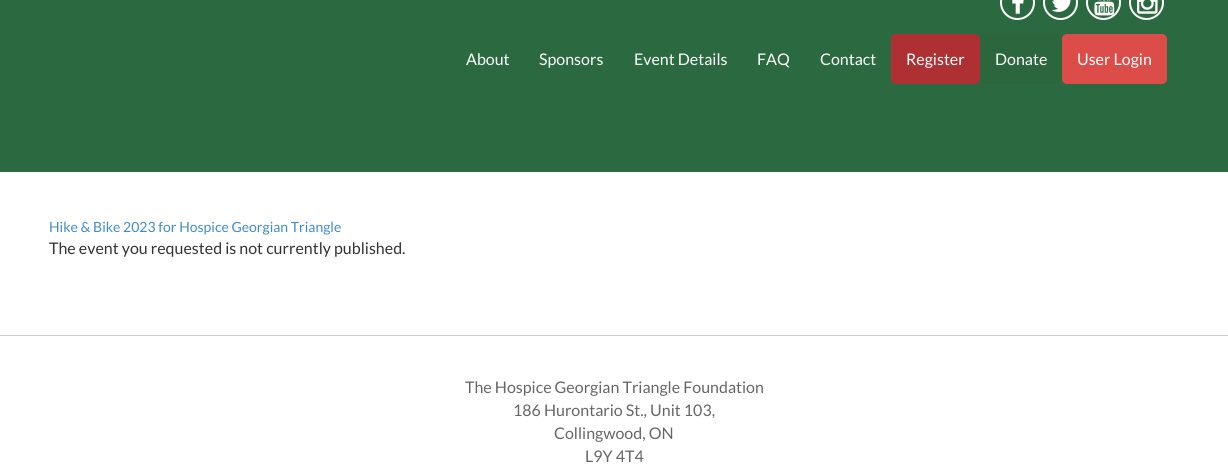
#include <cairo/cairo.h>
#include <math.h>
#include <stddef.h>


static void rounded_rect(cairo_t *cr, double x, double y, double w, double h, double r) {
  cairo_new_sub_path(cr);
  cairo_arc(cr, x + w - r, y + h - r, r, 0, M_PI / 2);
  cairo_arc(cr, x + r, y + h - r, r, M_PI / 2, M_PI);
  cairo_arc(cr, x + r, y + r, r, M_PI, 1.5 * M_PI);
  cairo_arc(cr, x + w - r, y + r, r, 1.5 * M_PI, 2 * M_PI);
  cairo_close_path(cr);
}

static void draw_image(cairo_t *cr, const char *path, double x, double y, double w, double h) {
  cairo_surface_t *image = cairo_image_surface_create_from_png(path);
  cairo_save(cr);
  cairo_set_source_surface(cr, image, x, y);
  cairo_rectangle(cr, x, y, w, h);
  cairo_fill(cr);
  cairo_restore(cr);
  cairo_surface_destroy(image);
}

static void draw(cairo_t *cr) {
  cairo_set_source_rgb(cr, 1, 1, 1);
  cairo_paint(cr);
  cairo_set_source_rgb(cr, 43 / 255.0, 106 / 255.0, 64 / 255.0);
  cairo_rectangle(cr, 0, 0, 1228, 172);
  cairo_fill(cr);
  cairo_arc(cr, 1017.5, 2.5, 16.5, 0, 2 * M_PI);
  cairo_set_source_rgb(cr, 1, 1, 1);
  cairo_stroke(cr);
  draw_image(cr, "images/1.png", 1012, 0, 12, 14);
  cairo_arc(cr, 1060.5, 2.5, 16.5, 0, 2 * M_PI);
  cairo_stroke(cr);
  draw_image(cr, "images/2.png", 1051, 0, 20, 12);
  cairo_arc(cr, 1103.5, 2.5, 16.5, 0, 2 * M_PI);
  cairo_stroke(cr);
  draw_image(cr, "images/3.png", 1094, 0, 21, 16);
  cairo_arc(cr, 1146.5, 2.5, 16.5, 0, 2 * M_PI);
  cairo_stroke(cr);
  draw_image(cr, "images/4.png", 1137, 0, 21, 14);
  cairo_set_source_rgb(cr, 174 / 255.0, 48 / 255.0, 51 / 255.0);
  rounded_rect(cr, 891, 34, 89, 50, 5);
  cairo_fill(cr);
  cairo_set_source_rgb(cr, 44 / 255.0, 102 / 255.0, 60 / 255.0);
  rounded_rect(cr, 980, 34, 82, 50, 5);
  cairo_fill(cr);
  cairo_set_source_rgb(cr, 220 / 255.0, 77 / 255.0, 74 / 255.0);
  rounded_rect(cr, 1062, 34, 105, 50, 5);
  cairo_fill(cr);
  cairo_set_source_rgb(cr, 204 / 255.0, 204 / 255.0, 204 / 255.0);
  cairo_rectangle(cr, 0, 335, 1228, 1);
  cairo_fill(cr);
  cairo_select_font_face(cr, "Lato", CAIRO_FONT_SLANT_NORMAL, CAIRO_FONT_WEIGHT_NORMAL);
  cairo_set_font_size(cr, 16);
  cairo_set_source_rgb(cr, 1, 1, 1);
  cairo_move_to(cr, 466, 65);
  cairo_show_text(cr, "About");
  cairo_move_to(cr, 539, 65);
  cairo_show_text(cr, "Sponsors");
  cairo_move_to(cr, 634, 65);
  cairo_show_text(cr, "Event Details");
  cairo_move_to(cr, 757, 65);
  cairo_show_text(cr, "FAQ");
  cairo_move_to(cr, 820, 65);
  cairo_show_text(cr, "Contact");
  cairo_move_to(cr, 906, 65);
  cairo_show_text(cr, "Register");
  cairo_move_to(cr, 995, 65);
  cairo_show_text(cr, "Donate");
  cairo_move_to(cr, 1077, 65);
  cairo_show_text(cr, "User Login");
  cairo_set_font_size(cr, 14);
  cairo_set_source_rgb(cr, 66 / 255.0, 139 / 255.0, 202 / 255.0);
  cairo_move_to(cr, 49, 232);
  cairo_show_text(cr, "Hike & Bike 2023 for Hospice Georgian Triangle");
  cairo_set_font_size(cr, 16);
  cairo_set_source_rgb(cr, 51 / 255.0, 51 / 255.0, 51 / 255.0);
  cairo_move_to(cr, 49, 254);
  cairo_show_text(cr, "The event you requested is not currently published.");
  cairo_set_source_rgb(cr, 102 / 255.0, 102 / 255.0, 102 / 255.0);
  cairo_move_to(cr, 465, 393);
  cairo_show_text(cr, "The Hospice Georgian Triangle Foundation");
  cairo_move_to(cr, 513, 416);
  cairo_show_text(cr, "186 Hurontario St., Unit 103,");
  cairo_move_to(cr, 554, 439);
  cairo_show_text(cr, "Collingwood, ON");
  cairo_move_to(cr, 585, 462);
  cairo_show_text(cr, "L9Y 4T4");
}

int main(void) {
  cairo_surface_t *surface = cairo_image_surface_create(CAIRO_FORMAT_RGB24, 1228, 464);
  cairo_t *cr = cairo_create(surface);
  cairo_font_options_t *options = cairo_font_options_create();
  cairo_font_options_set_hint_metrics(options, CAIRO_HINT_METRICS_OFF);
  cairo_font_options_set_hint_style(options, CAIRO_HINT_STYLE_NONE);
  cairo_set_font_options(cr, options);
  cairo_set_miter_limit(cr, 4);
  draw(cr);
  cairo_surface_write_to_png(surface, "out.png");
  cairo_font_options_destroy(options);
  cairo_destroy(cr);
  cairo_surface_destroy(surface);
  return 0;
}
